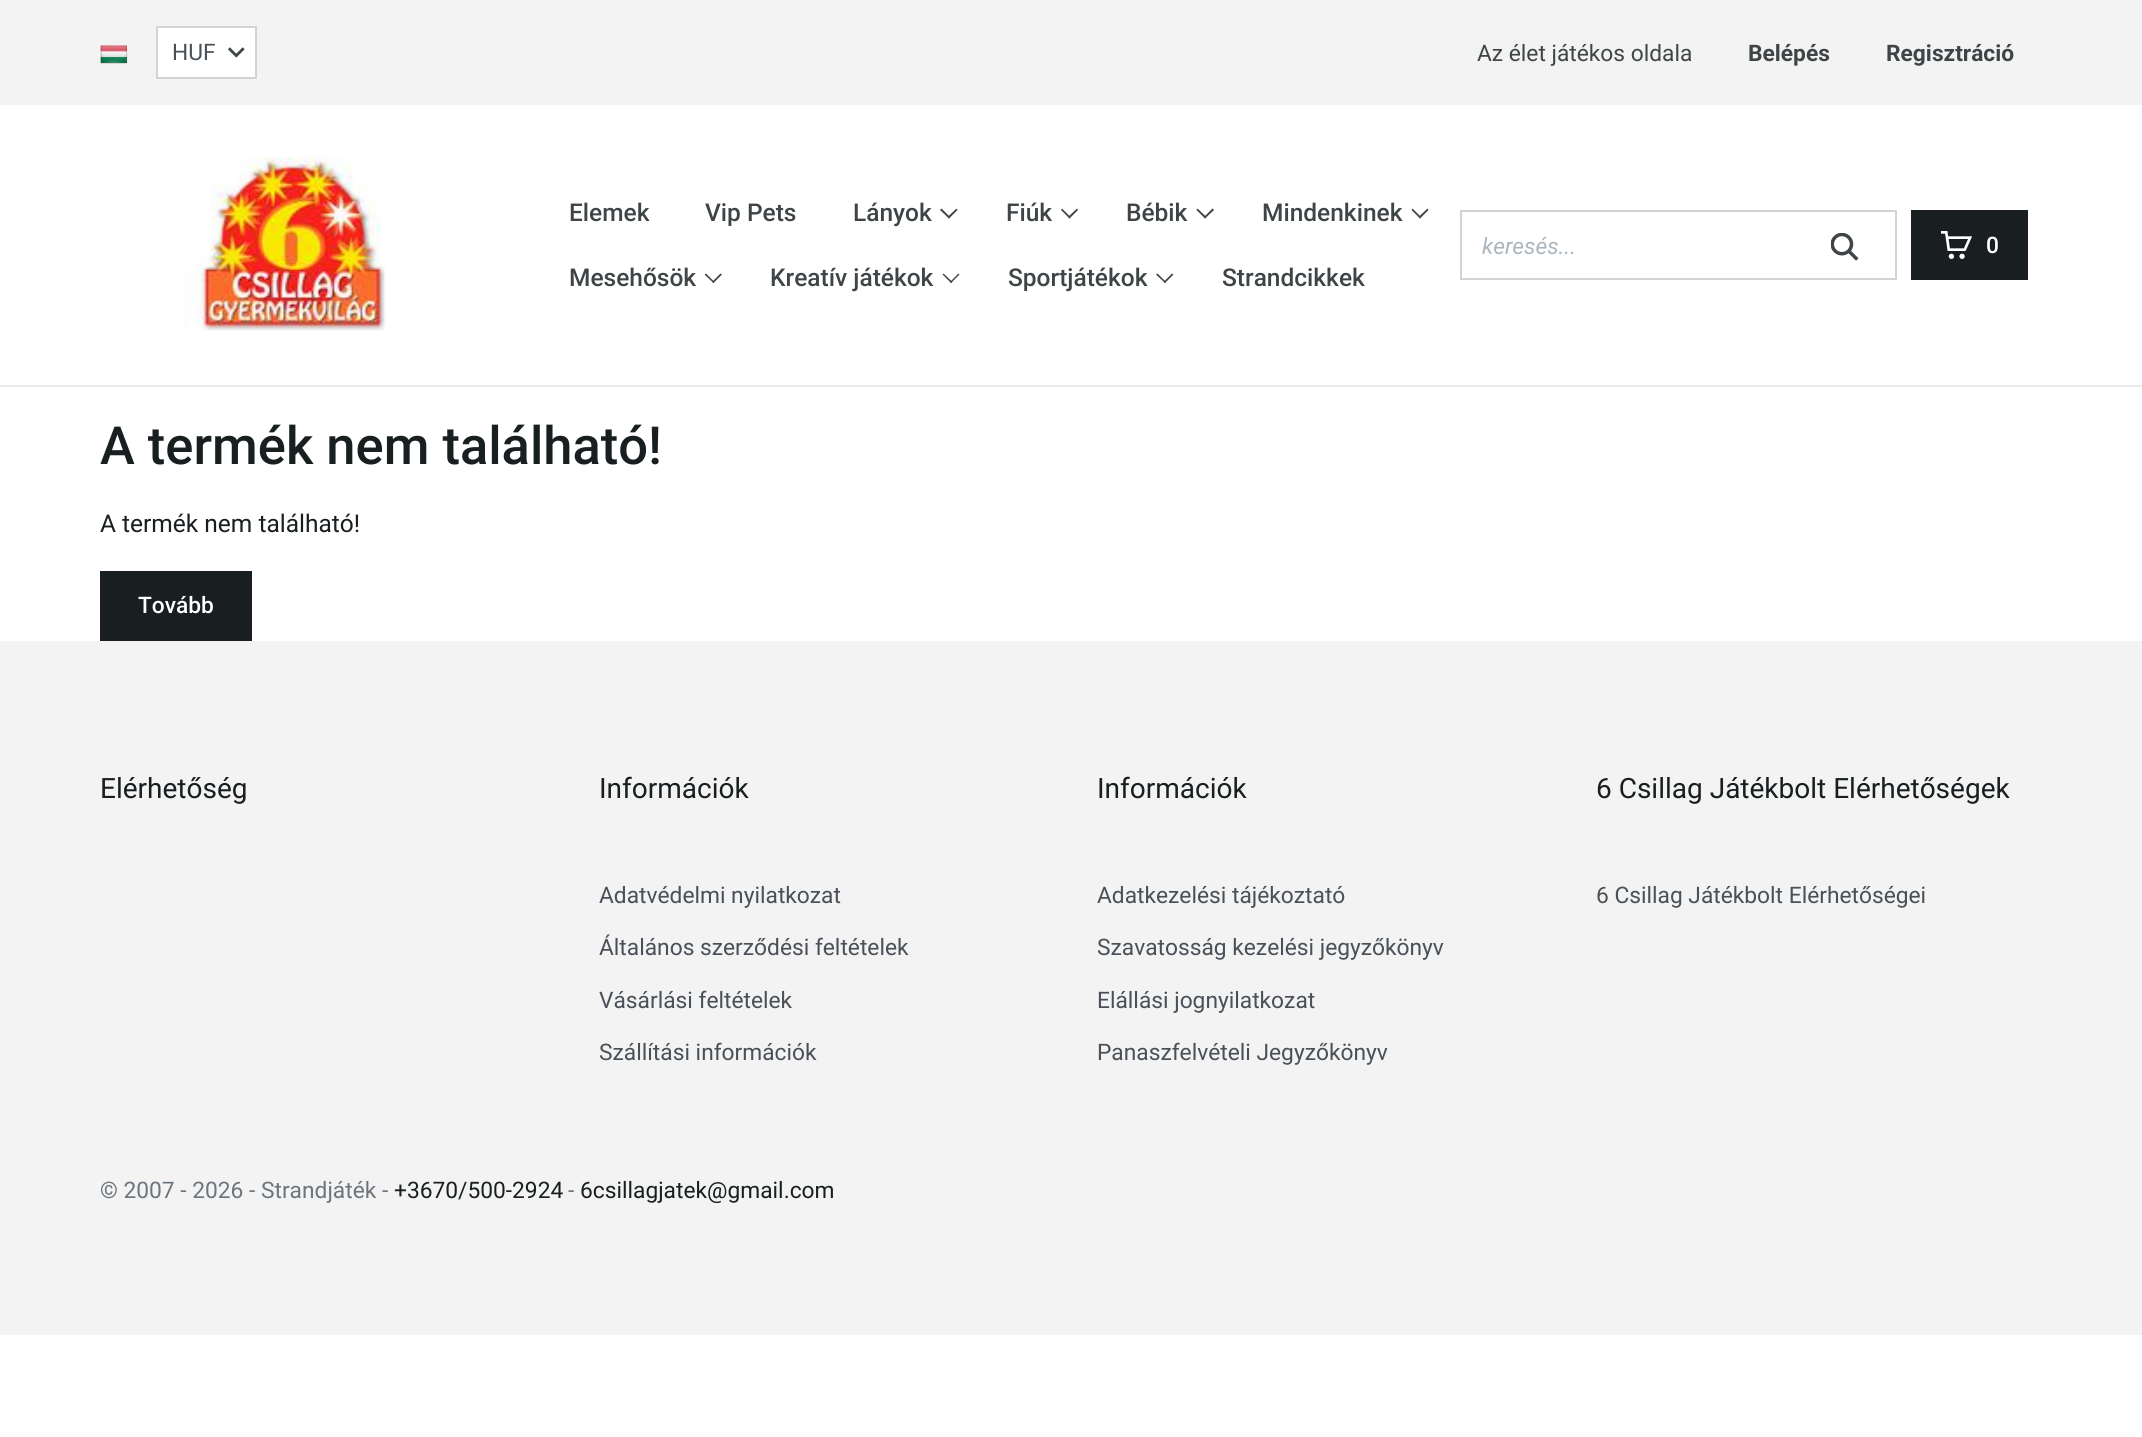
#include <cairo/cairo.h>
#include <math.h>
#include <stddef.h>


static void draw_image(cairo_t *cr, const char *path, double x, double y, double w, double h) {
  cairo_surface_t *image = cairo_image_surface_create_from_png(path);
  cairo_save(cr);
  cairo_set_source_surface(cr, image, x, y);
  cairo_rectangle(cr, x, y, w, h);
  cairo_fill(cr);
  cairo_restore(cr);
  cairo_surface_destroy(image);
}

static void draw(cairo_t *cr) {
  cairo_set_source_rgb(cr, 1, 1, 1);
  cairo_paint(cr);
  cairo_set_source_rgb(cr, 233 / 255.0, 236 / 255.0, 239 / 255.0);
  cairo_rectangle(cr, 0, 385, 2142, 2);
  cairo_fill(cr);
  cairo_set_source_rgb(cr, 243 / 255.0, 243 / 255.0, 243 / 255.0);
  cairo_rectangle(cr, 0, 0, 2142, 105);
  cairo_fill(cr);
  draw_image(cr, "images/1.png", 100, 45, 28, 19);
  cairo_set_source_rgb(cr, 1, 1, 1);
  cairo_rectangle(cr, 158, 28, 97, 49);
  cairo_fill(cr);
  draw_image(cr, "images/2.png", 228, 47, 17, 11);
  cairo_rectangle(cr, 157, 27, 99, 51);
  cairo_set_source_rgb(cr, 211 / 255.0, 211 / 255.0, 211 / 255.0);
  cairo_stroke(cr);
  draw_image(cr, "images/3.png", 184, 157, 202, 174);
  cairo_set_source_rgb(cr, 63 / 255.0, 69 / 255.0, 71 / 255.0);
  cairo_new_path(cr);
  cairo_move_to(cr, 956.5, 208.5);
  cairo_line_to(cr, 957.5, 210);
  cairo_line_to(cr, 949, 218.5);
  cairo_line_to(cr, 947.5, 217);
  cairo_close_path(cr);
  cairo_fill(cr);
  cairo_new_path(cr);
  cairo_move_to(cr, 941.5, 208.5);
  cairo_line_to(cr, 950, 217);
  cairo_line_to(cr, 949, 218.5);
  cairo_line_to(cr, 940, 210);
  cairo_close_path(cr);
  cairo_fill(cr);
  cairo_new_path(cr);
  cairo_move_to(cr, 1077, 208.5);
  cairo_line_to(cr, 1078, 210);
  cairo_line_to(cr, 1069.5, 218.5);
  cairo_line_to(cr, 1068, 217);
  cairo_close_path(cr);
  cairo_fill(cr);
  cairo_new_path(cr);
  cairo_move_to(cr, 1062, 208.5);
  cairo_line_to(cr, 1070.5, 217);
  cairo_line_to(cr, 1069.5, 218.5);
  cairo_line_to(cr, 1061, 210);
  cairo_close_path(cr);
  cairo_fill(cr);
  cairo_new_path(cr);
  cairo_move_to(cr, 1212.5, 208.5);
  cairo_line_to(cr, 1214, 210);
  cairo_line_to(cr, 1205, 218.5);
  cairo_line_to(cr, 1204, 217);
  cairo_close_path(cr);
  cairo_fill(cr);
  cairo_new_path(cr);
  cairo_move_to(cr, 1197.5, 208.5);
  cairo_line_to(cr, 1206.5, 217);
  cairo_line_to(cr, 1205, 218.5);
  cairo_line_to(cr, 1196.5, 210);
  cairo_close_path(cr);
  cairo_fill(cr);
  cairo_new_path(cr);
  cairo_move_to(cr, 1427.5, 208.5);
  cairo_line_to(cr, 1428.5, 210);
  cairo_line_to(cr, 1420, 218.5);
  cairo_line_to(cr, 1418.5, 217);
  cairo_close_path(cr);
  cairo_fill(cr);
  cairo_new_path(cr);
  cairo_move_to(cr, 1412.5, 208.5);
  cairo_line_to(cr, 1421, 217);
  cairo_line_to(cr, 1420, 218.5);
  cairo_line_to(cr, 1411.5, 210);
  cairo_close_path(cr);
  cairo_fill(cr);
  cairo_new_path(cr);
  cairo_move_to(cr, 720.5, 273.5);
  cairo_line_to(cr, 722, 274.5);
  cairo_line_to(cr, 713.5, 283);
  cairo_line_to(cr, 712, 282);
  cairo_close_path(cr);
  cairo_fill(cr);
  cairo_new_path(cr);
  cairo_move_to(cr, 706, 273.5);
  cairo_line_to(cr, 714.5, 282);
  cairo_line_to(cr, 713.5, 283);
  cairo_line_to(cr, 704.5, 274.5);
  cairo_close_path(cr);
  cairo_fill(cr);
  cairo_new_path(cr);
  cairo_move_to(cr, 958.5, 273.5);
  cairo_line_to(cr, 959.5, 274.5);
  cairo_line_to(cr, 951, 283);
  cairo_line_to(cr, 950, 282);
  cairo_close_path(cr);
  cairo_fill(cr);
  cairo_new_path(cr);
  cairo_move_to(cr, 943.5, 273.5);
  cairo_line_to(cr, 952.5, 282);
  cairo_line_to(cr, 951, 283);
  cairo_line_to(cr, 942.5, 274.5);
  cairo_close_path(cr);
  cairo_fill(cr);
  cairo_new_path(cr);
  cairo_move_to(cr, 1172, 273.5);
  cairo_line_to(cr, 1173.5, 274.5);
  cairo_line_to(cr, 1165, 283);
  cairo_line_to(cr, 1163.5, 282);
  cairo_close_path(cr);
  cairo_fill(cr);
  cairo_new_path(cr);
  cairo_move_to(cr, 1157.5, 273.5);
  cairo_line_to(cr, 1166, 282);
  cairo_line_to(cr, 1165, 283);
  cairo_line_to(cr, 1156, 274.5);
  cairo_close_path(cr);
  cairo_fill(cr);
  cairo_rectangle(cr, 1461, 211, 435, 68);
  cairo_set_source_rgb(cr, 211 / 255.0, 211 / 255.0, 211 / 255.0);
  cairo_stroke(cr);
  draw_image(cr, "images/4.png", 1831, 233, 28, 28);
  cairo_set_source_rgb(cr, 25 / 255.0, 31 / 255.0, 33 / 255.0);
  cairo_rectangle(cr, 1911, 210, 117, 70);
  cairo_fill(cr);
  draw_image(cr, "images/5.png", 1941, 231, 31, 28);
  cairo_rectangle(cr, 100, 571, 152, 70);
  cairo_fill(cr);
  cairo_set_source_rgb(cr, 243 / 255.0, 243 / 255.0, 243 / 255.0);
  cairo_rectangle(cr, 0, 641, 2142, 694);
  cairo_fill(cr);
  cairo_select_font_face(cr, "Roboto", CAIRO_FONT_SLANT_NORMAL, CAIRO_FONT_WEIGHT_NORMAL);
  cairo_set_font_size(cr, 22.75);
  cairo_set_source_rgb(cr, 73 / 255.0, 80 / 255.0, 87 / 255.0);
  cairo_move_to(cr, 172, 60);
  cairo_show_text(cr, "HUF");
  cairo_set_source_rgb(cr, 63 / 255.0, 69 / 255.0, 71 / 255.0);
  cairo_move_to(cr, 1477, 61);
  cairo_show_text(cr, "Az élet játékos oldala");
  cairo_select_font_face(cr, "Roboto", CAIRO_FONT_SLANT_NORMAL, CAIRO_FONT_WEIGHT_BOLD);
  cairo_move_to(cr, 1748, 61);
  cairo_show_text(cr, "Belépés");
  cairo_move_to(cr, 1886, 61);
  cairo_show_text(cr, "Regisztráció");
  cairo_select_font_face(cr, "Roboto Medium", CAIRO_FONT_SLANT_NORMAL, CAIRO_FONT_WEIGHT_NORMAL);
  cairo_set_font_size(cr, 24.5);
  cairo_move_to(cr, 569, 221);
  cairo_show_text(cr, "Elemek");
  cairo_move_to(cr, 705, 221);
  cairo_show_text(cr, "Vip Pets");
  cairo_move_to(cr, 853, 221);
  cairo_show_text(cr, "Lányok");
  cairo_move_to(cr, 1006, 221);
  cairo_show_text(cr, "Fiúk");
  cairo_move_to(cr, 1126, 221);
  cairo_show_text(cr, "Bébik");
  cairo_move_to(cr, 1262, 221);
  cairo_show_text(cr, "Mindenkinek");
  cairo_move_to(cr, 569, 286);
  cairo_show_text(cr, "Mesehősök");
  cairo_move_to(cr, 770, 286);
  cairo_show_text(cr, "Kreatív játékok");
  cairo_move_to(cr, 1008, 286);
  cairo_show_text(cr, "Sportjátékok");
  cairo_move_to(cr, 1222, 286);
  cairo_show_text(cr, "Strandcikkek");
  cairo_select_font_face(cr, "Roboto", CAIRO_FONT_SLANT_ITALIC, CAIRO_FONT_WEIGHT_NORMAL);
  cairo_set_font_size(cr, 22.75);
  cairo_set_source_rgb(cr, 173 / 255.0, 181 / 255.0, 189 / 255.0);
  cairo_move_to(cr, 1482, 254);
  cairo_show_text(cr, "keresés...");
  cairo_select_font_face(cr, "Roboto Medium", CAIRO_FONT_SLANT_NORMAL, CAIRO_FONT_WEIGHT_NORMAL);
  cairo_set_source_rgb(cr, 1, 1, 1);
  cairo_move_to(cr, 1986, 253);
  cairo_show_text(cr, "0");
  cairo_set_font_size(cr, 52.5);
  cairo_set_source_rgb(cr, 25 / 255.0, 31 / 255.0, 33 / 255.0);
  cairo_move_to(cr, 100, 464);
  cairo_show_text(cr, "A termék nem található!");
  cairo_select_font_face(cr, "Roboto", CAIRO_FONT_SLANT_NORMAL, CAIRO_FONT_WEIGHT_NORMAL);
  cairo_set_font_size(cr, 24.5);
  cairo_move_to(cr, 100, 532);
  cairo_show_text(cr, "A termék nem található!");
  cairo_select_font_face(cr, "Roboto Medium", CAIRO_FONT_SLANT_NORMAL, CAIRO_FONT_WEIGHT_NORMAL);
  cairo_set_font_size(cr, 22.75);
  cairo_set_source_rgb(cr, 1, 1, 1);
  cairo_move_to(cr, 138, 613);
  cairo_show_text(cr, "Tovább");
  cairo_select_font_face(cr, "Roboto", CAIRO_FONT_SLANT_NORMAL, CAIRO_FONT_WEIGHT_NORMAL);
  cairo_set_font_size(cr, 28);
  cairo_set_source_rgb(cr, 25 / 255.0, 31 / 255.0, 33 / 255.0);
  cairo_move_to(cr, 100, 798);
  cairo_show_text(cr, "Elérhetőség");
  cairo_move_to(cr, 599, 798);
  cairo_show_text(cr, "Információk");
  cairo_set_font_size(cr, 22.75);
  cairo_set_source_rgb(cr, 73 / 255.0, 80 / 255.0, 87 / 255.0);
  cairo_move_to(cr, 599, 903);
  cairo_show_text(cr, "Adatvédelmi nyilatkozat");
  cairo_move_to(cr, 599, 955);
  cairo_show_text(cr, "Általános szerződési feltételek");
  cairo_move_to(cr, 599, 1008);
  cairo_show_text(cr, "Vásárlási feltételek");
  cairo_move_to(cr, 599, 1060);
  cairo_show_text(cr, "Szállítási információk");
  cairo_set_font_size(cr, 28);
  cairo_set_source_rgb(cr, 25 / 255.0, 31 / 255.0, 33 / 255.0);
  cairo_move_to(cr, 1097, 798);
  cairo_show_text(cr, "Információk");
  cairo_set_font_size(cr, 22.75);
  cairo_set_source_rgb(cr, 73 / 255.0, 80 / 255.0, 87 / 255.0);
  cairo_move_to(cr, 1097, 903);
  cairo_show_text(cr, "Adatkezelési tájékoztató");
  cairo_move_to(cr, 1097, 955);
  cairo_show_text(cr, "Szavatosság kezelési jegyzőkönyv");
  cairo_move_to(cr, 1097, 1008);
  cairo_show_text(cr, "Elállási jognyilatkozat");
  cairo_move_to(cr, 1097, 1060);
  cairo_show_text(cr, "Panaszfelvételi Jegyzőkönyv");
  cairo_set_font_size(cr, 28);
  cairo_set_source_rgb(cr, 25 / 255.0, 31 / 255.0, 33 / 255.0);
  cairo_move_to(cr, 1596, 798);
  cairo_show_text(cr, "6 Csillag Játékbolt Elérhetőségek");
  cairo_set_font_size(cr, 22.75);
  cairo_set_source_rgb(cr, 73 / 255.0, 80 / 255.0, 87 / 255.0);
  cairo_move_to(cr, 1596, 903);
  cairo_show_text(cr, "6 Csillag Játékbolt Elérhetőségei");
  cairo_set_source_rgb(cr, 108 / 255.0, 117 / 255.0, 125 / 255.0);
  cairo_move_to(cr, 100, 1198);
  cairo_show_text(cr, "© 2007 - 2026 - Strandjáték -");
  cairo_set_source_rgb(cr, 25 / 255.0, 31 / 255.0, 33 / 255.0);
  cairo_move_to(cr, 394, 1198);
  cairo_show_text(cr, "+3670/500-2924");
  cairo_set_source_rgb(cr, 108 / 255.0, 117 / 255.0, 125 / 255.0);
  cairo_move_to(cr, 568, 1198);
  cairo_show_text(cr, "-");
  cairo_set_source_rgb(cr, 25 / 255.0, 31 / 255.0, 33 / 255.0);
  cairo_move_to(cr, 580, 1198);
  cairo_show_text(cr, "6csillagjatek@gmail.com");
}

int main(void) {
  cairo_surface_t *surface = cairo_image_surface_create(CAIRO_FORMAT_RGB24, 2142, 1437);
  cairo_t *cr = cairo_create(surface);
  cairo_font_options_t *options = cairo_font_options_create();
  cairo_font_options_set_hint_metrics(options, CAIRO_HINT_METRICS_OFF);
  cairo_font_options_set_hint_style(options, CAIRO_HINT_STYLE_NONE);
  cairo_set_font_options(cr, options);
  cairo_set_miter_limit(cr, 4);
  draw(cr);
  cairo_surface_write_to_png(surface, "out.png");
  cairo_font_options_destroy(options);
  cairo_destroy(cr);
  cairo_surface_destroy(surface);
  return 0;
}
